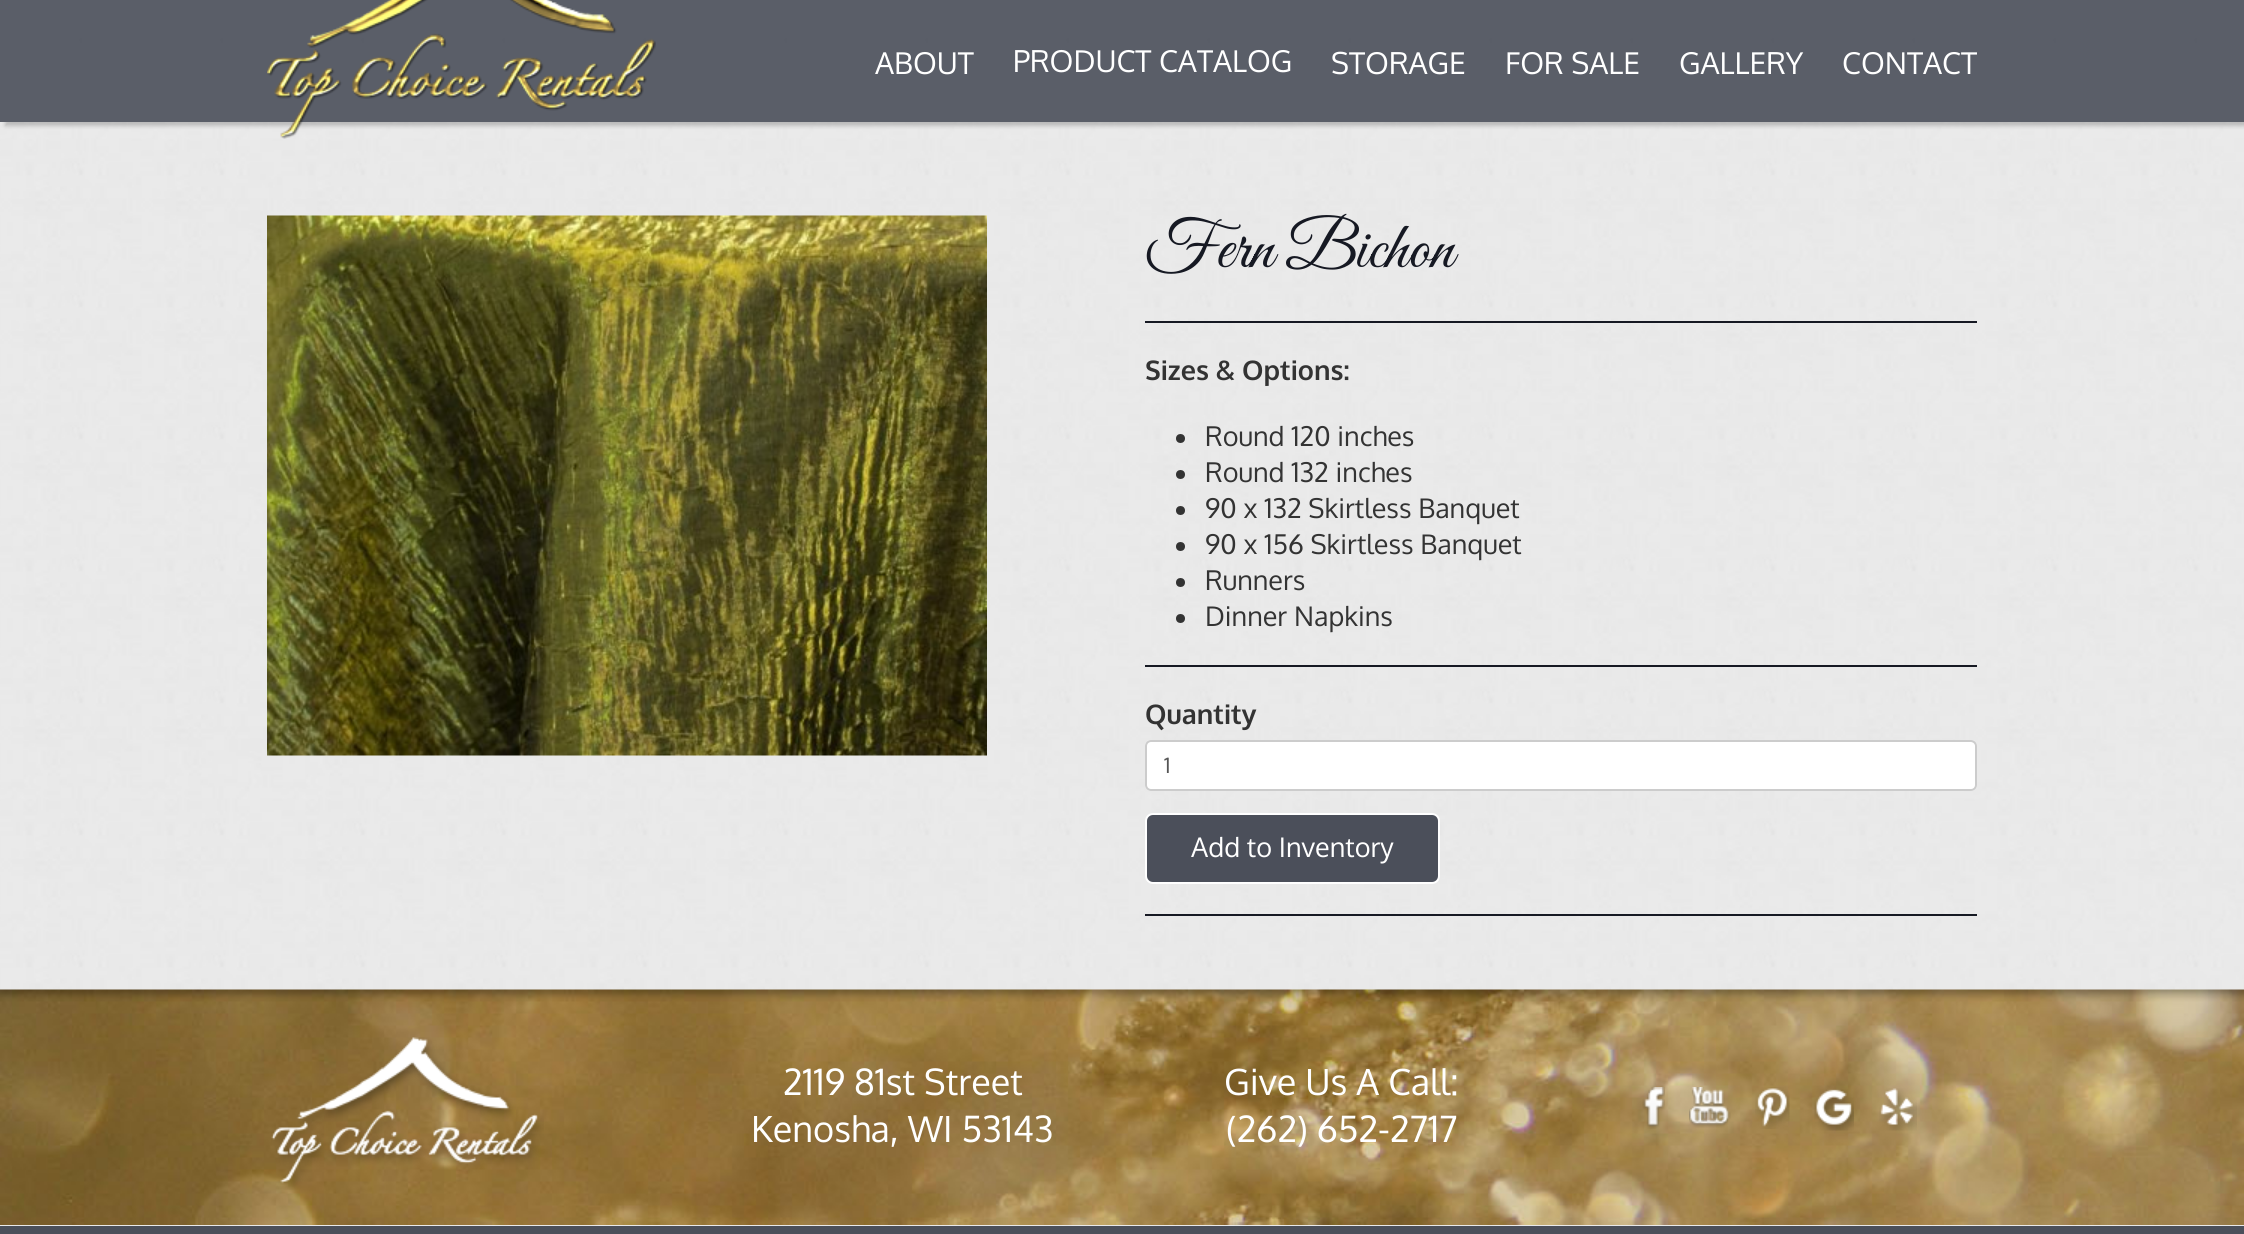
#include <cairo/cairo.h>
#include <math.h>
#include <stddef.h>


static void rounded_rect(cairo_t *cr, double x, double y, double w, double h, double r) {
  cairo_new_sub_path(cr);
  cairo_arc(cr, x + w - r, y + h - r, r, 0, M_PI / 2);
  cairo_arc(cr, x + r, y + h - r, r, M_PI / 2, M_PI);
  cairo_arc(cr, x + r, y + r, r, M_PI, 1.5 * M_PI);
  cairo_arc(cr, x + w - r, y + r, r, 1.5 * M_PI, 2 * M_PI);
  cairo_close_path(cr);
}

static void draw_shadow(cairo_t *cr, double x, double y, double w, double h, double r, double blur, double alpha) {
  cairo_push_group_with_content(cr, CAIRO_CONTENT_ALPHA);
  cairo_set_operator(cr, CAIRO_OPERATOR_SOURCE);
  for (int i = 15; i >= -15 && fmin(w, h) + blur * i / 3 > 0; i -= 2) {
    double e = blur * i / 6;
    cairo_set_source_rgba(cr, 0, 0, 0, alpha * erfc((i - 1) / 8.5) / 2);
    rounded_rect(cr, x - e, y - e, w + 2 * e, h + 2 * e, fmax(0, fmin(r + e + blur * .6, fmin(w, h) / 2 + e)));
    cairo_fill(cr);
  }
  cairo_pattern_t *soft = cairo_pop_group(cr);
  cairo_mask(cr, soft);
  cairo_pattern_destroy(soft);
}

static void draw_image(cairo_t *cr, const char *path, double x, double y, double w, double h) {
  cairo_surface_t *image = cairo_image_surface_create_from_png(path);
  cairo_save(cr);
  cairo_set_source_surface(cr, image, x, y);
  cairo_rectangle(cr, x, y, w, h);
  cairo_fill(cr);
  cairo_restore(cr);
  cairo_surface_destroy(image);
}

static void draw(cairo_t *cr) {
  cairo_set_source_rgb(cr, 1, 1, 1);
  cairo_paint(cr);
  draw_image(cr, "images/1.png", 0, 0, 2244, 1226);
  cairo_save(cr);
  cairo_set_fill_rule(cr, CAIRO_FILL_RULE_EVEN_ODD);
  cairo_new_path(cr);
  cairo_move_to(cr, 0, 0);
  cairo_line_to(cr, 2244, 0);
  cairo_line_to(cr, 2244, 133);
  cairo_line_to(cr, 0, 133);
  cairo_close_path(cr);
  cairo_move_to(cr, 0, -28);
  cairo_line_to(cr, 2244, -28);
  cairo_line_to(cr, 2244, 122);
  cairo_line_to(cr, 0, 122);
  cairo_close_path(cr);
  cairo_clip(cr);
  cairo_set_source_rgb(cr, 0, 0, 0);
  draw_shadow(cr, 5, -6, 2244, 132, 0, 2, 0.2);
  cairo_restore(cr);
  cairo_set_source_rgba(cr, 75 / 255.0, 79 / 255.0, 90 / 255.0, 0.9);
  cairo_rectangle(cr, 0, 0, 2244, 122);
  cairo_fill(cr);
  draw_image(cr, "images/2.png", 267, 0, 389, 139);
  draw_image(cr, "images/3.png", 267, 215, 720, 541);
  cairo_set_source_rgb(cr, 22 / 255.0, 25 / 255.0, 35 / 255.0);
  cairo_rectangle(cr, 1145, 321, 832, 2);
  cairo_fill(cr);
  cairo_set_source_rgb(cr, 51 / 255.0, 51 / 255.0, 51 / 255.0);
  cairo_arc(cr, 1180.5, 438.5, 4.5, 0, 2 * M_PI);
  cairo_fill(cr);
  cairo_arc(cr, 1180.5, 474.5, 4.5, 0, 2 * M_PI);
  cairo_fill(cr);
  cairo_arc(cr, 1180.5, 510.5, 4.5, 0, 2 * M_PI);
  cairo_fill(cr);
  cairo_arc(cr, 1180.5, 546.5, 4.5, 0, 2 * M_PI);
  cairo_fill(cr);
  cairo_arc(cr, 1180.5, 582.5, 4.5, 0, 2 * M_PI);
  cairo_fill(cr);
  cairo_arc(cr, 1180.5, 618.5, 4.5, 0, 2 * M_PI);
  cairo_fill(cr);
  cairo_set_source_rgb(cr, 22 / 255.0, 25 / 255.0, 35 / 255.0);
  cairo_rectangle(cr, 1145, 665, 832, 2);
  cairo_fill(cr);
  cairo_set_source_rgb(cr, 1, 1, 1);
  rounded_rect(cr, 1145, 740, 832, 51, 6);
  cairo_fill(cr);
  cairo_set_source_rgb(cr, 236 / 255.0, 236 / 255.0, 236 / 255.0);
  cairo_new_path(cr);
  cairo_move_to(cr, 1150, 742);
  cairo_line_to(cr, 1971, 742);
  cairo_curve_to(cr, 1973, 742, 1976, 745, 1976, 747);
  cairo_line_to(cr, 1976, 746);
  cairo_curve_to(cr, 1976, 743, 1974, 741, 1971, 741);
  cairo_line_to(cr, 1151, 741);
  cairo_curve_to(cr, 1148, 741, 1146, 743, 1146, 746);
  cairo_line_to(cr, 1146, 747);
  cairo_curve_to(cr, 1146, 745, 1148, 742, 1150, 742);
  cairo_close_path(cr);
  cairo_fill(cr);
  rounded_rect(cr, 1146, 741, 830, 49, 5);
  cairo_set_source_rgb(cr, 204 / 255.0, 204 / 255.0, 204 / 255.0);
  cairo_stroke(cr);
  cairo_set_source_rgb(cr, 75 / 255.0, 79 / 255.0, 90 / 255.0);
  rounded_rect(cr, 1146, 814, 293, 69, 7);
  cairo_fill_preserve(cr);
  cairo_set_source_rgb(cr, 1, 1, 1);
  cairo_stroke(cr);
  cairo_set_source_rgb(cr, 22 / 255.0, 25 / 255.0, 35 / 255.0);
  cairo_rectangle(cr, 1145, 914, 832, 2);
  cairo_fill(cr);
  draw_image(cr, "images/4.png", 0, 989, 2244, 236);
  draw_image(cr, "images/5.png", 271, 1037, 273, 153);
  draw_image(cr, "images/6.png", 1642, 1087, 23, 42);
  draw_image(cr, "images/7.png", 1689, 1087, 42, 41);
  draw_image(cr, "images/8.png", 1755, 1087, 35, 42);
  draw_image(cr, "images/9.png", 1814, 1089, 40, 42);
  draw_image(cr, "images/10.png", 1879, 1088, 38, 43);
  cairo_set_source_rgb(cr, 75 / 255.0, 79 / 255.0, 90 / 255.0);
  cairo_rectangle(cr, 0, 1226, 2244, 8);
  cairo_fill(cr);
  cairo_select_font_face(cr, "Oxygen", CAIRO_FONT_SLANT_NORMAL, CAIRO_FONT_WEIGHT_NORMAL);
  cairo_set_font_size(cr, 30);
  cairo_set_source_rgb(cr, 1, 1, 1);
  cairo_move_to(cr, 875, 74);
  cairo_show_text(cr, "ABOUT");
  cairo_move_to(cr, 1013, 72);
  cairo_show_text(cr, "PRODUCT CATALOG");
  cairo_move_to(cr, 1331, 74);
  cairo_show_text(cr, "STORAGE");
  cairo_move_to(cr, 1505, 74);
  cairo_show_text(cr, "FOR SALE");
  cairo_move_to(cr, 1679, 74);
  cairo_show_text(cr, "GALLERY");
  cairo_move_to(cr, 1842, 74);
  cairo_show_text(cr, "CONTACT");
  cairo_select_font_face(cr, "Great Vibes", CAIRO_FONT_SLANT_NORMAL, CAIRO_FONT_WEIGHT_NORMAL);
  cairo_set_font_size(cr, 67.5);
  cairo_set_source_rgb(cr, 22 / 255.0, 25 / 255.0, 35 / 255.0);
  cairo_move_to(cr, 1145, 267);
  cairo_show_text(cr, "Fern Bichon");
  cairo_select_font_face(cr, "Oxygen", CAIRO_FONT_SLANT_NORMAL, CAIRO_FONT_WEIGHT_BOLD);
  cairo_set_font_size(cr, 27);
  cairo_set_source_rgb(cr, 51 / 255.0, 51 / 255.0, 51 / 255.0);
  cairo_move_to(cr, 1145, 380);
  cairo_show_text(cr, "Sizes & Options:");
  cairo_select_font_face(cr, "Oxygen", CAIRO_FONT_SLANT_NORMAL, CAIRO_FONT_WEIGHT_NORMAL);
  cairo_move_to(cr, 1205, 446);
  cairo_show_text(cr, "Round 120 inches");
  cairo_move_to(cr, 1205, 482);
  cairo_show_text(cr, "Round 132 inches");
  cairo_move_to(cr, 1205, 518);
  cairo_show_text(cr, "90 x 132 Skirtless Banquet");
  cairo_move_to(cr, 1205, 554);
  cairo_show_text(cr, "90 x 156 Skirtless Banquet");
  cairo_move_to(cr, 1205, 590);
  cairo_show_text(cr, "Runners");
  cairo_move_to(cr, 1205, 626);
  cairo_show_text(cr, "Dinner Napkins");
  cairo_select_font_face(cr, "Oxygen", CAIRO_FONT_SLANT_NORMAL, CAIRO_FONT_WEIGHT_BOLD);
  cairo_move_to(cr, 1145, 724);
  cairo_show_text(cr, "Quantity");
  cairo_select_font_face(cr, "Oxygen", CAIRO_FONT_SLANT_NORMAL, CAIRO_FONT_WEIGHT_NORMAL);
  cairo_set_font_size(cr, 21);
  cairo_set_source_rgb(cr, 85 / 255.0, 85 / 255.0, 85 / 255.0);
  cairo_move_to(cr, 1164, 773);
  cairo_show_text(cr, "1");
  cairo_set_font_size(cr, 27);
  cairo_set_source_rgb(cr, 1, 1, 1);
  cairo_move_to(cr, 1191, 857);
  cairo_show_text(cr, "Add to Inventory");
  cairo_set_font_size(cr, 36);
  cairo_move_to(cr, 783, 1095);
  cairo_show_text(cr, "2119 81st Street");
  cairo_move_to(cr, 751, 1142);
  cairo_show_text(cr, "Kenosha, WI 53143");
  cairo_move_to(cr, 1224, 1095);
  cairo_show_text(cr, "Give Us A Call:");
  cairo_move_to(cr, 1226, 1142);
  cairo_show_text(cr, "(262) 652-2717");
}

int main(void) {
  cairo_surface_t *surface = cairo_image_surface_create(CAIRO_FORMAT_RGB24, 2244, 1234);
  cairo_t *cr = cairo_create(surface);
  cairo_font_options_t *options = cairo_font_options_create();
  cairo_font_options_set_hint_metrics(options, CAIRO_HINT_METRICS_OFF);
  cairo_font_options_set_hint_style(options, CAIRO_HINT_STYLE_NONE);
  cairo_set_font_options(cr, options);
  cairo_set_miter_limit(cr, 4);
  draw(cr);
  cairo_surface_write_to_png(surface, "out.png");
  cairo_font_options_destroy(options);
  cairo_destroy(cr);
  cairo_surface_destroy(surface);
  return 0;
}
